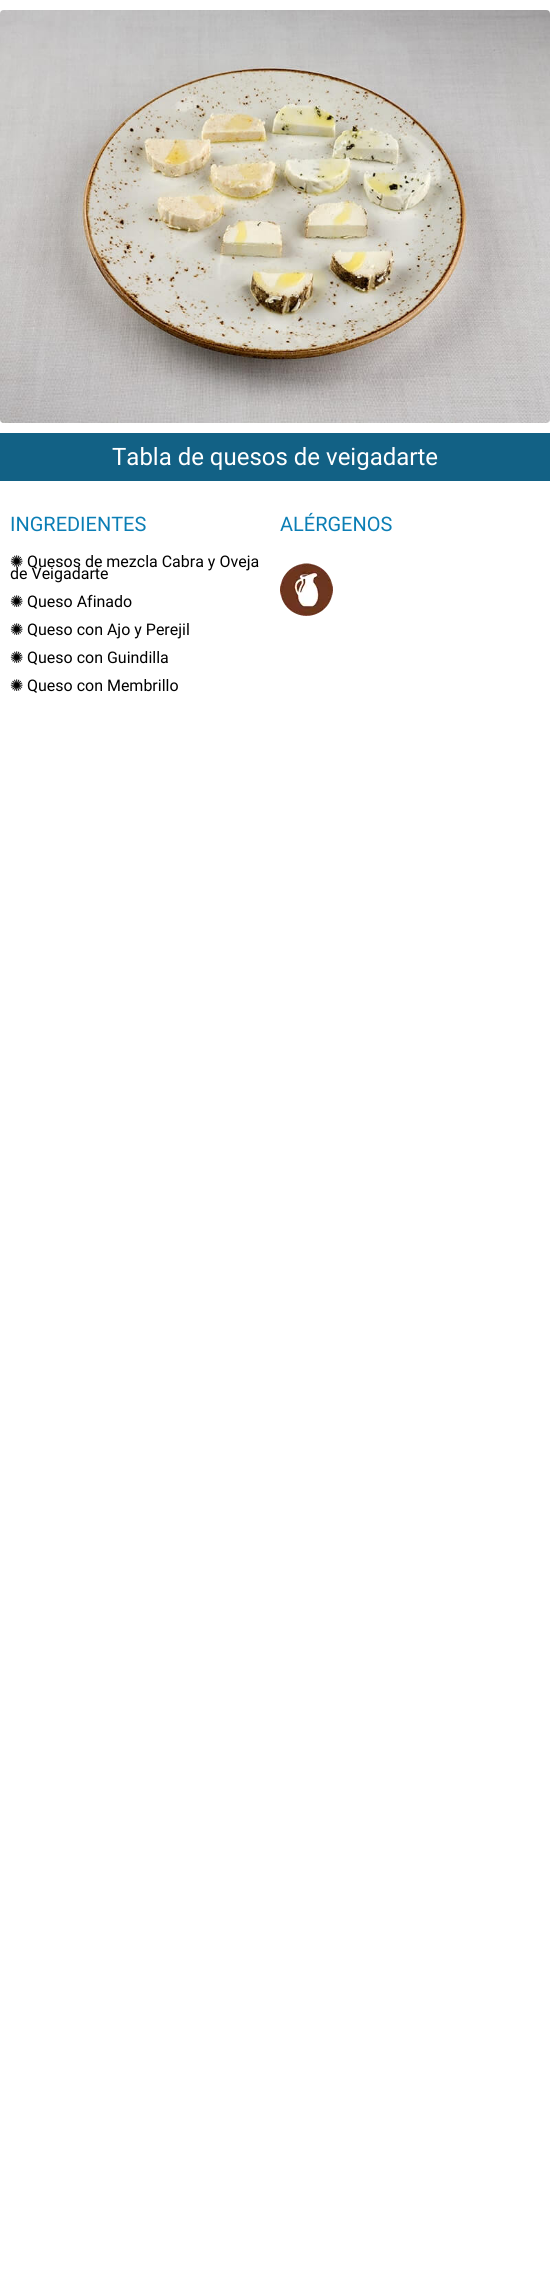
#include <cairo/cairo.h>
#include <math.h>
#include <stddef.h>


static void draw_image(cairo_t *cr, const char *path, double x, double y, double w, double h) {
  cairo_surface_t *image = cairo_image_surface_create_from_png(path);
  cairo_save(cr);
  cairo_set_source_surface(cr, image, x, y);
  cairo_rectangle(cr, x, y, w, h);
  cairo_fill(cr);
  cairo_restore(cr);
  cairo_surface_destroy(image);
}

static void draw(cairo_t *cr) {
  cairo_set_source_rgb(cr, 1, 1, 1);
  cairo_paint(cr);
  draw_image(cr, "images/1.png", 0, 10, 550, 413);
  cairo_set_source_rgb(cr, 18 / 255.0, 97 / 255.0, 133 / 255.0);
  cairo_rectangle(cr, 0, 433, 550, 48);
  cairo_fill(cr);
  draw_image(cr, "images/2.png", 280, 563, 53, 54);
  cairo_select_font_face(cr, "Roboto", CAIRO_FONT_SLANT_NORMAL, CAIRO_FONT_WEIGHT_NORMAL);
  cairo_set_font_size(cr, 24);
  cairo_set_source_rgb(cr, 1, 1, 1);
  cairo_move_to(cr, 112, 465);
  cairo_show_text(cr, "Tabla de quesos de veigadarte");
  cairo_set_font_size(cr, 20);
  cairo_set_source_rgb(cr, 11 / 255.0, 126 / 255.0, 181 / 255.0);
  cairo_move_to(cr, 10, 531);
  cairo_show_text(cr, "INGREDIENTES");
  cairo_select_font_face(cr, "DejaVu Sans", CAIRO_FONT_SLANT_NORMAL, CAIRO_FONT_WEIGHT_NORMAL);
  cairo_set_font_size(cr, 16);
  cairo_set_source_rgb(cr, 0, 0, 0);
  cairo_move_to(cr, 10, 567);
  cairo_show_text(cr, "✺");
  cairo_select_font_face(cr, "Roboto", CAIRO_FONT_SLANT_NORMAL, CAIRO_FONT_WEIGHT_NORMAL);
  cairo_move_to(cr, 27, 567);
  cairo_show_text(cr, "Quesos de mezcla Cabra y Oveja");
  cairo_move_to(cr, 10, 579);
  cairo_show_text(cr, "de Veigadarte");
  cairo_select_font_face(cr, "DejaVu Sans", CAIRO_FONT_SLANT_NORMAL, CAIRO_FONT_WEIGHT_NORMAL);
  cairo_move_to(cr, 10, 607);
  cairo_show_text(cr, "✺");
  cairo_select_font_face(cr, "Roboto", CAIRO_FONT_SLANT_NORMAL, CAIRO_FONT_WEIGHT_NORMAL);
  cairo_move_to(cr, 27, 607);
  cairo_show_text(cr, "Queso Afinado");
  cairo_select_font_face(cr, "DejaVu Sans", CAIRO_FONT_SLANT_NORMAL, CAIRO_FONT_WEIGHT_NORMAL);
  cairo_move_to(cr, 10, 635);
  cairo_show_text(cr, "✺");
  cairo_select_font_face(cr, "Roboto", CAIRO_FONT_SLANT_NORMAL, CAIRO_FONT_WEIGHT_NORMAL);
  cairo_move_to(cr, 27, 635);
  cairo_show_text(cr, "Queso con Ajo y Perejil");
  cairo_select_font_face(cr, "DejaVu Sans", CAIRO_FONT_SLANT_NORMAL, CAIRO_FONT_WEIGHT_NORMAL);
  cairo_move_to(cr, 10, 663);
  cairo_show_text(cr, "✺");
  cairo_select_font_face(cr, "Roboto", CAIRO_FONT_SLANT_NORMAL, CAIRO_FONT_WEIGHT_NORMAL);
  cairo_move_to(cr, 27, 663);
  cairo_show_text(cr, "Queso con Guindilla");
  cairo_select_font_face(cr, "DejaVu Sans", CAIRO_FONT_SLANT_NORMAL, CAIRO_FONT_WEIGHT_NORMAL);
  cairo_move_to(cr, 10, 691);
  cairo_show_text(cr, "✺");
  cairo_select_font_face(cr, "Roboto", CAIRO_FONT_SLANT_NORMAL, CAIRO_FONT_WEIGHT_NORMAL);
  cairo_move_to(cr, 27, 691);
  cairo_show_text(cr, "Queso con Membrillo");
  cairo_set_font_size(cr, 20);
  cairo_set_source_rgb(cr, 11 / 255.0, 126 / 255.0, 181 / 255.0);
  cairo_move_to(cr, 280, 531);
  cairo_show_text(cr, "ALÉRGENOS");
}

int main(void) {
  cairo_surface_t *surface = cairo_image_surface_create(CAIRO_FORMAT_RGB24, 550, 2275);
  cairo_t *cr = cairo_create(surface);
  cairo_font_options_t *options = cairo_font_options_create();
  cairo_font_options_set_hint_metrics(options, CAIRO_HINT_METRICS_OFF);
  cairo_font_options_set_hint_style(options, CAIRO_HINT_STYLE_NONE);
  cairo_set_font_options(cr, options);
  cairo_set_miter_limit(cr, 4);
  draw(cr);
  cairo_surface_write_to_png(surface, "out.png");
  cairo_font_options_destroy(options);
  cairo_destroy(cr);
  cairo_surface_destroy(surface);
  return 0;
}
